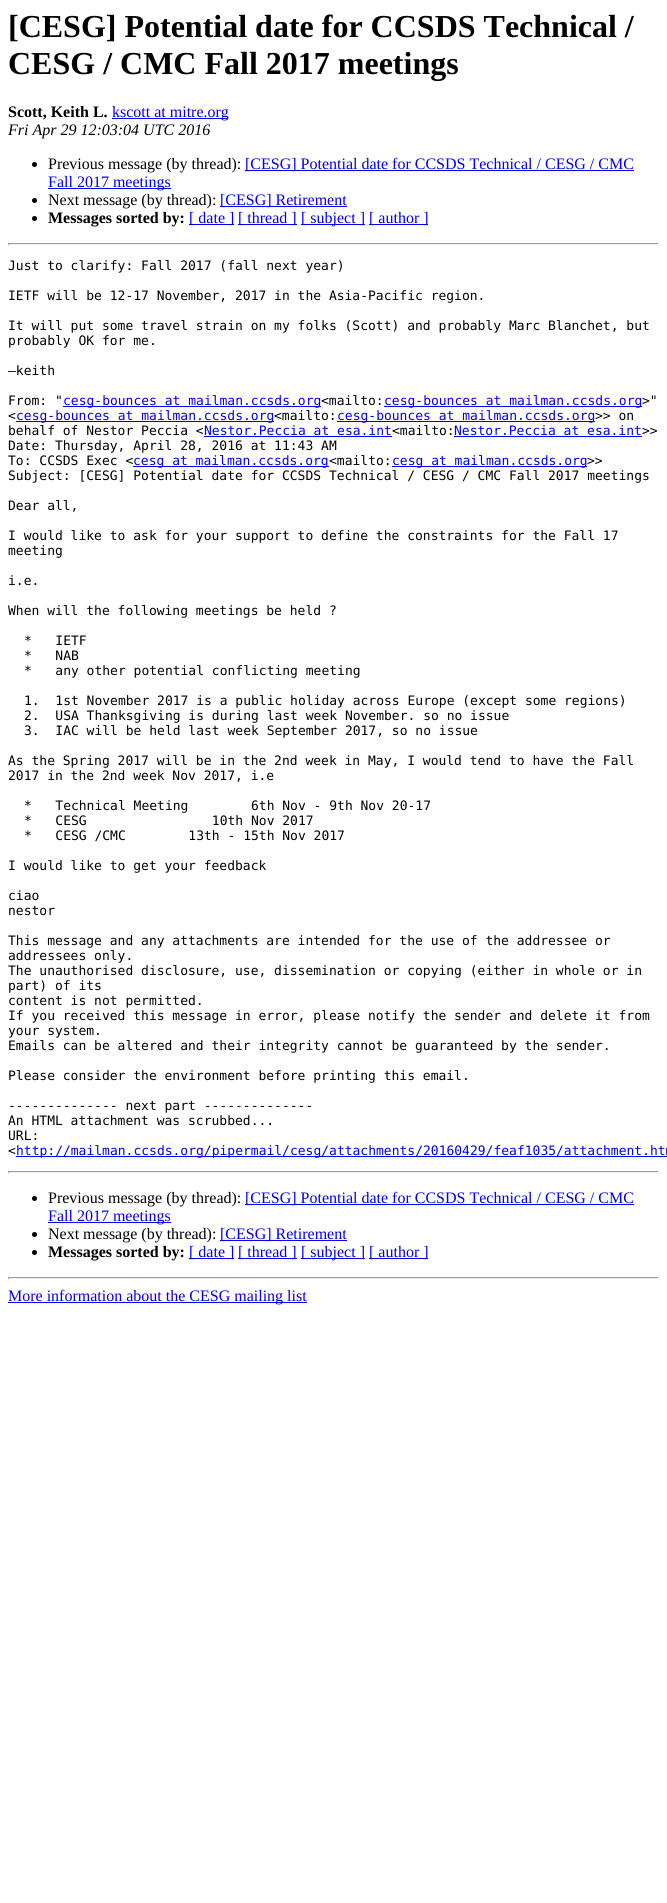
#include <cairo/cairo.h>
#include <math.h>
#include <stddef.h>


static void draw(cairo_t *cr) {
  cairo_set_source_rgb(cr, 1, 1, 1);
  cairo_paint(cr);
  cairo_set_source_rgb(cr, 0, 0, 238 / 255.0);
  cairo_rectangle(cr, 112, 118, 116, 1);
  cairo_fill(cr);
  cairo_set_source_rgb(cr, 0, 0, 0);
  cairo_arc(cr, 34.5, 164.5, 2.5, 0, 2 * M_PI);
  cairo_fill(cr);
  cairo_set_source_rgb(cr, 0, 0, 238 / 255.0);
  cairo_rectangle(cr, 245, 170, 389, 1);
  cairo_fill(cr);
  cairo_rectangle(cr, 48, 188, 123, 1);
  cairo_fill(cr);
  cairo_set_source_rgb(cr, 0, 0, 0);
  cairo_arc(cr, 34.5, 200.5, 2.5, 0, 2 * M_PI);
  cairo_fill(cr);
  cairo_set_source_rgb(cr, 0, 0, 238 / 255.0);
  cairo_rectangle(cr, 220, 206, 127, 1);
  cairo_fill(cr);
  cairo_set_source_rgb(cr, 0, 0, 0);
  cairo_arc(cr, 34.5, 218.5, 2.5, 0, 2 * M_PI);
  cairo_fill(cr);
  cairo_set_source_rgb(cr, 0, 0, 238 / 255.0);
  cairo_rectangle(cr, 189, 224, 45, 1);
  cairo_fill(cr);
  cairo_rectangle(cr, 238, 224, 59, 1);
  cairo_fill(cr);
  cairo_rectangle(cr, 301, 224, 64, 1);
  cairo_fill(cr);
  cairo_rectangle(cr, 369, 224, 59, 1);
  cairo_fill(cr);
  cairo_set_source_rgb(cr, 159 / 255.0, 159 / 255.0, 159 / 255.0);
  cairo_rectangle(cr, 8, 243, 651, 1);
  cairo_fill(cr);
  cairo_set_source_rgb(cr, 238 / 255.0, 238 / 255.0, 238 / 255.0);
  cairo_rectangle(cr, 658, 243, 1, 2);
  cairo_fill(cr);
  cairo_rectangle(cr, 8, 244, 651, 1);
  cairo_fill(cr);
  cairo_set_source_rgb(cr, 159 / 255.0, 159 / 255.0, 159 / 255.0);
  cairo_rectangle(cr, 8, 243, 1, 2);
  cairo_fill(cr);
  cairo_set_source_rgb(cr, 0, 0, 238 / 255.0);
  cairo_rectangle(cr, 63, 406, 258, 1);
  cairo_fill(cr);
  cairo_rectangle(cr, 384, 406, 258, 1);
  cairo_fill(cr);
  cairo_rectangle(cr, 16, 421, 258, 1);
  cairo_fill(cr);
  cairo_rectangle(cr, 337, 421, 258, 1);
  cairo_fill(cr);
  cairo_rectangle(cr, 204, 436, 188, 1);
  cairo_fill(cr);
  cairo_rectangle(cr, 454, 436, 188, 1);
  cairo_fill(cr);
  cairo_rectangle(cr, 133, 466, 196, 1);
  cairo_fill(cr);
  cairo_rectangle(cr, 392, 466, 195, 1);
  cairo_fill(cr);
  cairo_rectangle(cr, 16, 1156, 651, 1);
  cairo_fill(cr);
  cairo_set_source_rgb(cr, 159 / 255.0, 159 / 255.0, 159 / 255.0);
  cairo_rectangle(cr, 8, 1171, 651, 1);
  cairo_fill(cr);
  cairo_set_source_rgb(cr, 238 / 255.0, 238 / 255.0, 238 / 255.0);
  cairo_rectangle(cr, 658, 1171, 1, 2);
  cairo_fill(cr);
  cairo_rectangle(cr, 8, 1172, 651, 1);
  cairo_fill(cr);
  cairo_set_source_rgb(cr, 159 / 255.0, 159 / 255.0, 159 / 255.0);
  cairo_rectangle(cr, 8, 1171, 1, 2);
  cairo_fill(cr);
  cairo_set_source_rgb(cr, 0, 0, 0);
  cairo_arc(cr, 34.5, 1198.5, 2.5, 0, 2 * M_PI);
  cairo_fill(cr);
  cairo_set_source_rgb(cr, 0, 0, 238 / 255.0);
  cairo_rectangle(cr, 245, 1204, 389, 1);
  cairo_fill(cr);
  cairo_rectangle(cr, 48, 1222, 123, 1);
  cairo_fill(cr);
  cairo_set_source_rgb(cr, 0, 0, 0);
  cairo_arc(cr, 34.5, 1234.5, 2.5, 0, 2 * M_PI);
  cairo_fill(cr);
  cairo_set_source_rgb(cr, 0, 0, 238 / 255.0);
  cairo_rectangle(cr, 220, 1240, 127, 1);
  cairo_fill(cr);
  cairo_set_source_rgb(cr, 0, 0, 0);
  cairo_arc(cr, 34.5, 1252.5, 2.5, 0, 2 * M_PI);
  cairo_fill(cr);
  cairo_set_source_rgb(cr, 0, 0, 238 / 255.0);
  cairo_rectangle(cr, 189, 1258, 45, 1);
  cairo_fill(cr);
  cairo_rectangle(cr, 238, 1258, 59, 1);
  cairo_fill(cr);
  cairo_rectangle(cr, 301, 1258, 64, 1);
  cairo_fill(cr);
  cairo_rectangle(cr, 369, 1258, 59, 1);
  cairo_fill(cr);
  cairo_set_source_rgb(cr, 159 / 255.0, 159 / 255.0, 159 / 255.0);
  cairo_rectangle(cr, 8, 1277, 651, 1);
  cairo_fill(cr);
  cairo_set_source_rgb(cr, 238 / 255.0, 238 / 255.0, 238 / 255.0);
  cairo_rectangle(cr, 658, 1277, 1, 2);
  cairo_fill(cr);
  cairo_rectangle(cr, 8, 1278, 651, 1);
  cairo_fill(cr);
  cairo_set_source_rgb(cr, 159 / 255.0, 159 / 255.0, 159 / 255.0);
  cairo_rectangle(cr, 8, 1277, 1, 2);
  cairo_fill(cr);
  cairo_set_source_rgb(cr, 0, 0, 238 / 255.0);
  cairo_rectangle(cr, 8, 1302, 299, 1);
  cairo_fill(cr);
  cairo_select_font_face(cr, "Liberation Serif", CAIRO_FONT_SLANT_NORMAL, CAIRO_FONT_WEIGHT_BOLD);
  cairo_set_font_size(cr, 32);
  cairo_set_source_rgb(cr, 0, 0, 0);
  cairo_move_to(cr, 8, 37);
  cairo_show_text(cr, "[CESG] Potential date for CCSDS Technical /");
  cairo_move_to(cr, 8, 74);
  cairo_show_text(cr, "CESG / CMC Fall 2017 meetings");
  cairo_set_font_size(cr, 16);
  cairo_move_to(cr, 8, 117);
  cairo_show_text(cr, "Scott, Keith L.");
  cairo_select_font_face(cr, "Liberation Serif", CAIRO_FONT_SLANT_NORMAL, CAIRO_FONT_WEIGHT_NORMAL);
  cairo_set_source_rgb(cr, 0, 0, 238 / 255.0);
  cairo_move_to(cr, 112, 117);
  cairo_show_text(cr, "kscott at mitre.org");
  cairo_select_font_face(cr, "Liberation Serif", CAIRO_FONT_SLANT_ITALIC, CAIRO_FONT_WEIGHT_NORMAL);
  cairo_set_source_rgb(cr, 0, 0, 0);
  cairo_move_to(cr, 8, 135);
  cairo_show_text(cr, "Fri Apr 29 12:03:04 UTC 2016");
  cairo_select_font_face(cr, "Liberation Serif", CAIRO_FONT_SLANT_NORMAL, CAIRO_FONT_WEIGHT_NORMAL);
  cairo_move_to(cr, 48, 169);
  cairo_show_text(cr, "Previous message (by thread):");
  cairo_set_source_rgb(cr, 0, 0, 238 / 255.0);
  cairo_move_to(cr, 245, 169);
  cairo_show_text(cr, "[CESG] Potential date for CCSDS Technical / CESG / CMC");
  cairo_move_to(cr, 48, 187);
  cairo_show_text(cr, "Fall 2017 meetings");
  cairo_set_source_rgb(cr, 0, 0, 0);
  cairo_move_to(cr, 48, 205);
  cairo_show_text(cr, "Next message (by thread):");
  cairo_set_source_rgb(cr, 0, 0, 238 / 255.0);
  cairo_move_to(cr, 220, 205);
  cairo_show_text(cr, "[CESG] Retirement");
  cairo_select_font_face(cr, "Liberation Serif", CAIRO_FONT_SLANT_NORMAL, CAIRO_FONT_WEIGHT_BOLD);
  cairo_set_source_rgb(cr, 0, 0, 0);
  cairo_move_to(cr, 48, 223);
  cairo_show_text(cr, "Messages sorted by:");
  cairo_select_font_face(cr, "Liberation Serif", CAIRO_FONT_SLANT_NORMAL, CAIRO_FONT_WEIGHT_NORMAL);
  cairo_set_source_rgb(cr, 0, 0, 238 / 255.0);
  cairo_move_to(cr, 189, 223);
  cairo_show_text(cr, "[ date ]");
  cairo_move_to(cr, 238, 223);
  cairo_show_text(cr, "[ thread ]");
  cairo_move_to(cr, 301, 223);
  cairo_show_text(cr, "[ subject ]");
  cairo_move_to(cr, 369, 223);
  cairo_show_text(cr, "[ author ]");
  cairo_select_font_face(cr, "DejaVu Sans Mono", CAIRO_FONT_SLANT_NORMAL, CAIRO_FONT_WEIGHT_NORMAL);
  cairo_set_font_size(cr, 13);
  cairo_set_source_rgb(cr, 0, 0, 0);
  cairo_move_to(cr, 8, 270);
  cairo_show_text(cr, "Just to clarify: Fall 2017 (fall next year)");
  cairo_move_to(cr, 8, 300);
  cairo_show_text(cr, "IETF will be 12-17 November, 2017 in the Asia-Pacific region.");
  cairo_move_to(cr, 8, 330);
  cairo_show_text(cr, "It will put some travel strain on my folks (Scott) and probably Marc Blanchet, but");
  cairo_move_to(cr, 8, 345);
  cairo_show_text(cr, "probably OK for me.");
  cairo_move_to(cr, 8, 375);
  cairo_show_text(cr, "—keith");
  cairo_move_to(cr, 8, 405);
  cairo_show_text(cr, "From: \"");
  cairo_set_source_rgb(cr, 0, 0, 238 / 255.0);
  cairo_move_to(cr, 63, 405);
  cairo_show_text(cr, "cesg-bounces at mailman.ccsds.org");
  cairo_set_source_rgb(cr, 0, 0, 0);
  cairo_move_to(cr, 321, 405);
  cairo_show_text(cr, "<mailto:");
  cairo_set_source_rgb(cr, 0, 0, 238 / 255.0);
  cairo_move_to(cr, 384, 405);
  cairo_show_text(cr, "cesg-bounces at mailman.ccsds.org");
  cairo_set_source_rgb(cr, 0, 0, 0);
  cairo_move_to(cr, 642, 405);
  cairo_show_text(cr, ">\"");
  cairo_move_to(cr, 8, 420);
  cairo_show_text(cr, "<");
  cairo_set_source_rgb(cr, 0, 0, 238 / 255.0);
  cairo_move_to(cr, 16, 420);
  cairo_show_text(cr, "cesg-bounces at mailman.ccsds.org");
  cairo_set_source_rgb(cr, 0, 0, 0);
  cairo_move_to(cr, 274, 420);
  cairo_show_text(cr, "<mailto:");
  cairo_set_source_rgb(cr, 0, 0, 238 / 255.0);
  cairo_move_to(cr, 337, 420);
  cairo_show_text(cr, "cesg-bounces at mailman.ccsds.org");
  cairo_set_source_rgb(cr, 0, 0, 0);
  cairo_move_to(cr, 595, 420);
  cairo_show_text(cr, ">> on");
  cairo_move_to(cr, 8, 435);
  cairo_show_text(cr, "behalf of Nestor Peccia <");
  cairo_set_source_rgb(cr, 0, 0, 238 / 255.0);
  cairo_move_to(cr, 204, 435);
  cairo_show_text(cr, "Nestor.Peccia at esa.int");
  cairo_set_source_rgb(cr, 0, 0, 0);
  cairo_move_to(cr, 392, 435);
  cairo_show_text(cr, "<mailto:");
  cairo_set_source_rgb(cr, 0, 0, 238 / 255.0);
  cairo_move_to(cr, 454, 435);
  cairo_show_text(cr, "Nestor.Peccia at esa.int");
  cairo_set_source_rgb(cr, 0, 0, 0);
  cairo_move_to(cr, 642, 435);
  cairo_show_text(cr, ">>");
  cairo_move_to(cr, 8, 450);
  cairo_show_text(cr, "Date: Thursday, April 28, 2016 at 11:43 AM");
  cairo_move_to(cr, 8, 465);
  cairo_show_text(cr, "To: CCSDS Exec <");
  cairo_set_source_rgb(cr, 0, 0, 238 / 255.0);
  cairo_move_to(cr, 133, 465);
  cairo_show_text(cr, "cesg at mailman.ccsds.org");
  cairo_set_source_rgb(cr, 0, 0, 0);
  cairo_move_to(cr, 329, 465);
  cairo_show_text(cr, "<mailto:");
  cairo_set_source_rgb(cr, 0, 0, 238 / 255.0);
  cairo_move_to(cr, 392, 465);
  cairo_show_text(cr, "cesg at mailman.ccsds.org");
  cairo_set_source_rgb(cr, 0, 0, 0);
  cairo_move_to(cr, 587, 465);
  cairo_show_text(cr, ">>");
  cairo_move_to(cr, 8, 480);
  cairo_show_text(cr, "Subject: [CESG] Potential date for CCSDS Technical / CESG / CMC Fall 2017 meetings");
  cairo_move_to(cr, 8, 510);
  cairo_show_text(cr, "Dear all,");
  cairo_move_to(cr, 8, 540);
  cairo_show_text(cr, "I would like to ask for your support to define the constraints for the Fall 17");
  cairo_move_to(cr, 8, 555);
  cairo_show_text(cr, "meeting");
  cairo_move_to(cr, 8, 585);
  cairo_show_text(cr, "i.e.");
  cairo_move_to(cr, 8, 615);
  cairo_show_text(cr, "When will the following meetings be held ?");
  cairo_move_to(cr, 24, 645);
  cairo_show_text(cr, "*   IETF");
  cairo_move_to(cr, 24, 660);
  cairo_show_text(cr, "*   NAB");
  cairo_move_to(cr, 24, 675);
  cairo_show_text(cr, "*   any other potential conflicting meeting");
  cairo_move_to(cr, 24, 705);
  cairo_show_text(cr, "1.  1st November 2017 is a public holiday across Europe (except some regions)");
  cairo_move_to(cr, 24, 720);
  cairo_show_text(cr, "2.  USA Thanksgiving is during last week November. so no issue");
  cairo_move_to(cr, 24, 735);
  cairo_show_text(cr, "3.  IAC will be held last week September 2017, so no issue");
  cairo_move_to(cr, 8, 765);
  cairo_show_text(cr, "As the Spring 2017 will be in the 2nd week in May, I would tend to have the Fall");
  cairo_move_to(cr, 8, 780);
  cairo_show_text(cr, "2017 in the 2nd week Nov 2017, i.e");
  cairo_move_to(cr, 24, 810);
  cairo_show_text(cr, "*   Technical Meeting        6th Nov - 9th Nov 20-17");
  cairo_move_to(cr, 24, 825);
  cairo_show_text(cr, "*   CESG                10th Nov 2017");
  cairo_move_to(cr, 24, 840);
  cairo_show_text(cr, "*   CESG /CMC        13th - 15th Nov 2017");
  cairo_move_to(cr, 8, 870);
  cairo_show_text(cr, "I would like to get your feedback");
  cairo_move_to(cr, 8, 900);
  cairo_show_text(cr, "ciao");
  cairo_move_to(cr, 8, 915);
  cairo_show_text(cr, "nestor");
  cairo_move_to(cr, 8, 945);
  cairo_show_text(cr, "This message and any attachments are intended for the use of the addressee or");
  cairo_move_to(cr, 8, 960);
  cairo_show_text(cr, "addressees only.");
  cairo_move_to(cr, 8, 975);
  cairo_show_text(cr, "The unauthorised disclosure, use, dissemination or copying (either in whole or in");
  cairo_move_to(cr, 8, 990);
  cairo_show_text(cr, "part) of its");
  cairo_move_to(cr, 8, 1005);
  cairo_show_text(cr, "content is not permitted.");
  cairo_move_to(cr, 8, 1020);
  cairo_show_text(cr, "If you received this message in error, please notify the sender and delete it from");
  cairo_move_to(cr, 8, 1035);
  cairo_show_text(cr, "your system.");
  cairo_move_to(cr, 8, 1050);
  cairo_show_text(cr, "Emails can be altered and their integrity cannot be guaranteed by the sender.");
  cairo_move_to(cr, 8, 1080);
  cairo_show_text(cr, "Please consider the environment before printing this email.");
  cairo_move_to(cr, 8, 1110);
  cairo_show_text(cr, "-------------- next part --------------");
  cairo_move_to(cr, 8, 1125);
  cairo_show_text(cr, "An HTML attachment was scrubbed...");
  cairo_move_to(cr, 8, 1140);
  cairo_show_text(cr, "URL:");
  cairo_move_to(cr, 8, 1155);
  cairo_show_text(cr, "<");
  cairo_set_source_rgb(cr, 0, 0, 238 / 255.0);
  cairo_move_to(cr, 16, 1155);
  cairo_show_text(cr, "http://mailman.ccsds.org/pipermail/cesg/attachments/20160429/feaf1035/attachment.htm");
  cairo_select_font_face(cr, "Liberation Serif", CAIRO_FONT_SLANT_NORMAL, CAIRO_FONT_WEIGHT_NORMAL);
  cairo_set_font_size(cr, 16);
  cairo_set_source_rgb(cr, 0, 0, 0);
  cairo_move_to(cr, 48, 1203);
  cairo_show_text(cr, "Previous message (by thread):");
  cairo_set_source_rgb(cr, 0, 0, 238 / 255.0);
  cairo_move_to(cr, 245, 1203);
  cairo_show_text(cr, "[CESG] Potential date for CCSDS Technical / CESG / CMC");
  cairo_move_to(cr, 48, 1221);
  cairo_show_text(cr, "Fall 2017 meetings");
  cairo_set_source_rgb(cr, 0, 0, 0);
  cairo_move_to(cr, 48, 1239);
  cairo_show_text(cr, "Next message (by thread):");
  cairo_set_source_rgb(cr, 0, 0, 238 / 255.0);
  cairo_move_to(cr, 220, 1239);
  cairo_show_text(cr, "[CESG] Retirement");
  cairo_select_font_face(cr, "Liberation Serif", CAIRO_FONT_SLANT_NORMAL, CAIRO_FONT_WEIGHT_BOLD);
  cairo_set_source_rgb(cr, 0, 0, 0);
  cairo_move_to(cr, 48, 1257);
  cairo_show_text(cr, "Messages sorted by:");
  cairo_select_font_face(cr, "Liberation Serif", CAIRO_FONT_SLANT_NORMAL, CAIRO_FONT_WEIGHT_NORMAL);
  cairo_set_source_rgb(cr, 0, 0, 238 / 255.0);
  cairo_move_to(cr, 189, 1257);
  cairo_show_text(cr, "[ date ]");
  cairo_move_to(cr, 238, 1257);
  cairo_show_text(cr, "[ thread ]");
  cairo_move_to(cr, 301, 1257);
  cairo_show_text(cr, "[ subject ]");
  cairo_move_to(cr, 369, 1257);
  cairo_show_text(cr, "[ author ]");
  cairo_move_to(cr, 8, 1301);
  cairo_show_text(cr, "More information about the CESG mailing list");
}

int main(void) {
  cairo_surface_t *surface = cairo_image_surface_create(CAIRO_FORMAT_RGB24, 667, 1903);
  cairo_t *cr = cairo_create(surface);
  cairo_font_options_t *options = cairo_font_options_create();
  cairo_font_options_set_hint_metrics(options, CAIRO_HINT_METRICS_OFF);
  cairo_font_options_set_hint_style(options, CAIRO_HINT_STYLE_NONE);
  cairo_set_font_options(cr, options);
  cairo_set_miter_limit(cr, 4);
  draw(cr);
  cairo_surface_write_to_png(surface, "out.png");
  cairo_font_options_destroy(options);
  cairo_destroy(cr);
  cairo_surface_destroy(surface);
  return 0;
}
